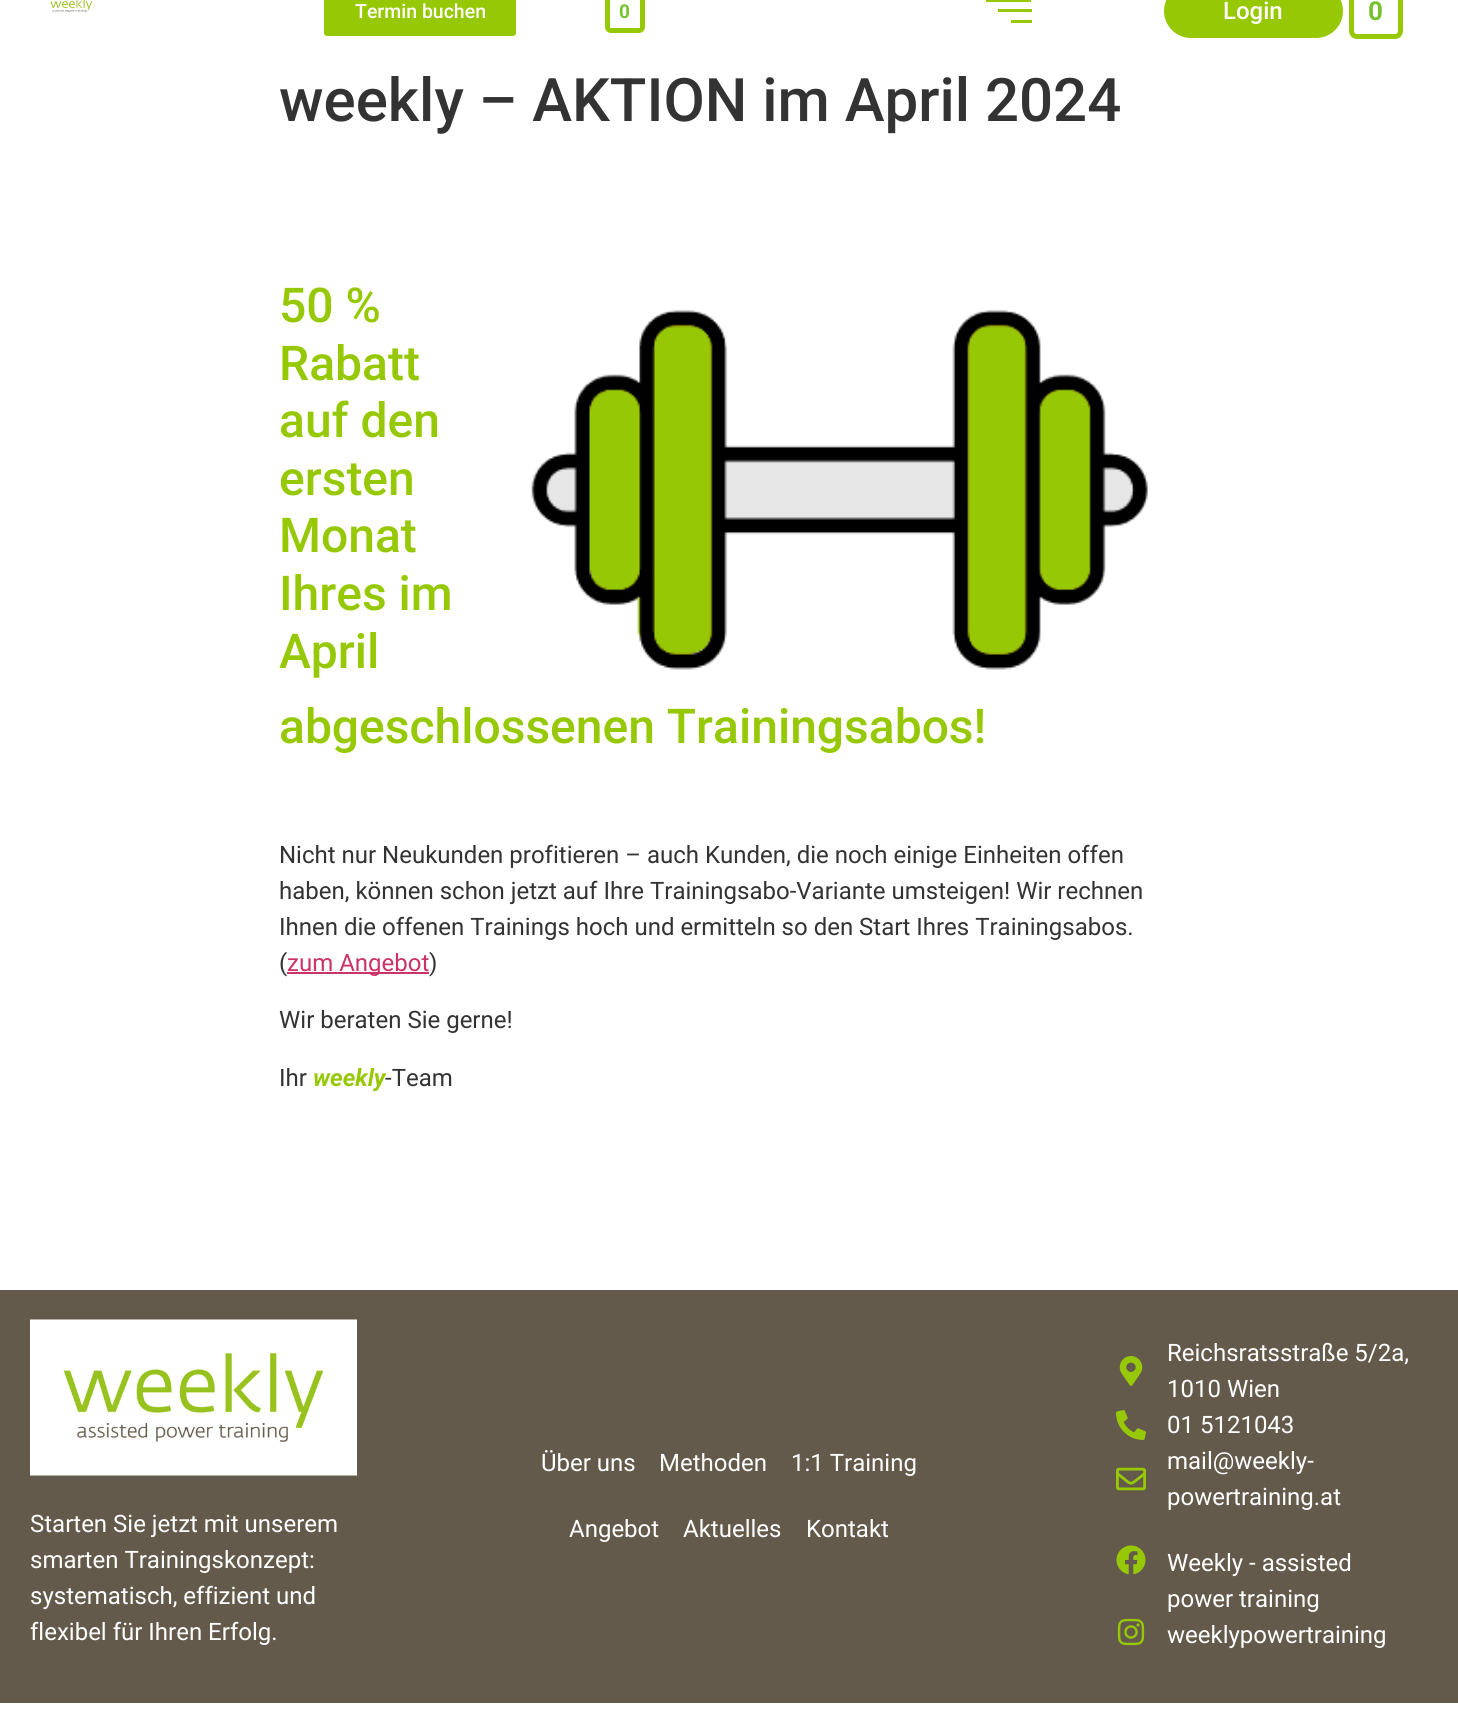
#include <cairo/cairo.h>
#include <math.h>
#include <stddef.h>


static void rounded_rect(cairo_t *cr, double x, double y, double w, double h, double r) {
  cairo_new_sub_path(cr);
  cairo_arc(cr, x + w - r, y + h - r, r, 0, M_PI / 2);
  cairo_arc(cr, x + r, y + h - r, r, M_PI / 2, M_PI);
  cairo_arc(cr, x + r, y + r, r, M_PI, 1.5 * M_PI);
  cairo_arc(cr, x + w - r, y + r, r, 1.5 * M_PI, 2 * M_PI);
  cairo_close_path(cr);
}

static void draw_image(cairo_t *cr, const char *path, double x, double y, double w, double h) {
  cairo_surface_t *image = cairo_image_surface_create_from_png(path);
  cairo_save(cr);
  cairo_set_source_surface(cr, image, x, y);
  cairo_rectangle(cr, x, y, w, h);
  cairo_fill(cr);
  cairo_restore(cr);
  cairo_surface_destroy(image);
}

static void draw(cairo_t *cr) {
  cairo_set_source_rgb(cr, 1, 1, 1);
  cairo_paint(cr);
  draw_image(cr, "images/1.png", 50, 0, 43, 13);
  cairo_set_source_rgb(cr, 150 / 255.0, 200 / 255.0, 5 / 255.0);
  rounded_rect(cr, 324, -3, 192, 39, 3);
  cairo_fill(cr);
  cairo_new_path(cr);
  cairo_move_to(cr, 607.5, -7.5);
  cairo_line_to(cr, 642.5, -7.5);
  cairo_line_to(cr, 642.5, 27);
  cairo_curve_to(cr, 642.5, 29, 641, 30.5, 639, 30.5);
  cairo_line_to(cr, 611, 30.5);
  cairo_curve_to(cr, 609, 30.5, 607.5, 29, 607.5, 27);
  cairo_close_path(cr);
  cairo_set_line_width(cr, 5);
  cairo_stroke(cr);
  cairo_rectangle(cr, 986, 0, 45, 2);
  cairo_fill(cr);
  cairo_rectangle(cr, 998, 9, 34, 3);
  cairo_fill(cr);
  cairo_rectangle(cr, 1011, 20, 21, 3);
  cairo_fill(cr);
  rounded_rect(cr, 1164, -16, 179, 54, 27);
  cairo_fill(cr);
  cairo_new_path(cr);
  cairo_move_to(cr, 1351.5, -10.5);
  cairo_line_to(cr, 1400.5, -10.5);
  cairo_line_to(cr, 1400.5, 31);
  cairo_curve_to(cr, 1400.5, 34, 1398, 36.5, 1395, 36.5);
  cairo_line_to(cr, 1357, 36.5);
  cairo_curve_to(cr, 1354, 36.5, 1351.5, 34, 1351.5, 31);
  cairo_close_path(cr);
  cairo_stroke(cr);
  draw_image(cr, "images/2.png", 531, 309, 617, 361);
  cairo_set_source_rgb(cr, 204 / 255.0, 51 / 255.0, 102 / 255.0);
  cairo_rectangle(cr, 287, 972, 142, 2);
  cairo_fill(cr);
  cairo_set_source_rgb(cr, 100 / 255.0, 90 / 255.0, 75 / 255.0);
  cairo_rectangle(cr, 0, 1290, 1458, 413);
  cairo_fill(cr);
  draw_image(cr, "images/3.png", 1119, 1356, 24, 30);
  draw_image(cr, "images/4.png", 1116, 1410, 30, 30);
  draw_image(cr, "images/5.png", 1116, 1467, 30, 24);
  draw_image(cr, "images/6.png", 1116, 1545, 30, 30);
  draw_image(cr, "images/7.png", 1117, 1618, 28, 28);
  draw_image(cr, "images/8.png", 30, 1319, 327, 157);
  cairo_select_font_face(cr, "Roboto Medium", CAIRO_FONT_SLANT_NORMAL, CAIRO_FONT_WEIGHT_NORMAL);
  cairo_set_font_size(cr, 19.5);
  cairo_set_source_rgb(cr, 1, 1, 1);
  cairo_move_to(cr, 355, 18);
  cairo_show_text(cr, "Termin buchen");
  cairo_select_font_face(cr, "Roboto", CAIRO_FONT_SLANT_NORMAL, CAIRO_FONT_WEIGHT_BOLD);
  cairo_set_font_size(cr, 19);
  cairo_set_source_rgb(cr, 117 / 255.0, 195 / 255.0, 44 / 255.0);
  cairo_move_to(cr, 619, 18);
  cairo_show_text(cr, "0");
  cairo_select_font_face(cr, "Roboto Medium", CAIRO_FONT_SLANT_NORMAL, CAIRO_FONT_WEIGHT_NORMAL);
  cairo_set_font_size(cr, 24);
  cairo_set_source_rgb(cr, 1, 1, 1);
  cairo_move_to(cr, 1223, 19);
  cairo_show_text(cr, "Login");
  cairo_select_font_face(cr, "Roboto", CAIRO_FONT_SLANT_NORMAL, CAIRO_FONT_WEIGHT_BOLD);
  cairo_set_font_size(cr, 26);
  cairo_set_source_rgb(cr, 117 / 255.0, 195 / 255.0, 44 / 255.0);
  cairo_move_to(cr, 1368, 20);
  cairo_show_text(cr, "0");
  cairo_select_font_face(cr, "Roboto Medium", CAIRO_FONT_SLANT_NORMAL, CAIRO_FONT_WEIGHT_NORMAL);
  cairo_set_font_size(cr, 60);
  cairo_set_source_rgb(cr, 51 / 255.0, 51 / 255.0, 51 / 255.0);
  cairo_move_to(cr, 279, 121);
  cairo_show_text(cr, "weekly – AKTION im April 2024");
  cairo_set_font_size(cr, 48);
  cairo_set_source_rgb(cr, 150 / 255.0, 200 / 255.0, 5 / 255.0);
  cairo_move_to(cr, 279, 322);
  cairo_show_text(cr, "50 %");
  cairo_move_to(cr, 279, 380);
  cairo_show_text(cr, "Rabatt");
  cairo_move_to(cr, 279, 437);
  cairo_show_text(cr, "auf den");
  cairo_move_to(cr, 279, 495);
  cairo_show_text(cr, "ersten");
  cairo_move_to(cr, 279, 552);
  cairo_show_text(cr, "Monat");
  cairo_move_to(cr, 279, 610);
  cairo_show_text(cr, "Ihres im");
  cairo_move_to(cr, 279, 668);
  cairo_show_text(cr, "April");
  cairo_move_to(cr, 279, 743);
  cairo_show_text(cr, "abgeschlossenen Trainingsabos!");
  cairo_select_font_face(cr, "Roboto", CAIRO_FONT_SLANT_NORMAL, CAIRO_FONT_WEIGHT_NORMAL);
  cairo_set_font_size(cr, 24);
  cairo_set_source_rgb(cr, 51 / 255.0, 51 / 255.0, 51 / 255.0);
  cairo_move_to(cr, 279, 863);
  cairo_show_text(cr, "Nicht nur Neukunden profitieren – auch Kunden, die noch einige Einheiten offen");
  cairo_move_to(cr, 279, 899);
  cairo_show_text(cr, "haben, können schon jetzt auf Ihre Trainingsabo-Variante umsteigen! Wir rechnen");
  cairo_move_to(cr, 279, 935);
  cairo_show_text(cr, "Ihnen die offenen Trainings hoch und ermitteln so den Start Ihres Trainingsabos.");
  cairo_move_to(cr, 279, 971);
  cairo_show_text(cr, "(");
  cairo_set_source_rgb(cr, 204 / 255.0, 51 / 255.0, 102 / 255.0);
  cairo_move_to(cr, 287, 971);
  cairo_show_text(cr, "zum Angebot");
  cairo_set_source_rgb(cr, 51 / 255.0, 51 / 255.0, 51 / 255.0);
  cairo_move_to(cr, 429, 971);
  cairo_show_text(cr, ")");
  cairo_move_to(cr, 279, 1028);
  cairo_show_text(cr, "Wir beraten Sie gerne!");
  cairo_move_to(cr, 279, 1086);
  cairo_show_text(cr, "Ihr");
  cairo_select_font_face(cr, "Roboto", CAIRO_FONT_SLANT_ITALIC, CAIRO_FONT_WEIGHT_BOLD);
  cairo_set_source_rgb(cr, 150 / 255.0, 200 / 255.0, 5 / 255.0);
  cairo_move_to(cr, 313, 1086);
  cairo_show_text(cr, "weekly");
  cairo_select_font_face(cr, "Roboto", CAIRO_FONT_SLANT_NORMAL, CAIRO_FONT_WEIGHT_NORMAL);
  cairo_set_source_rgb(cr, 51 / 255.0, 51 / 255.0, 51 / 255.0);
  cairo_move_to(cr, 385, 1086);
  cairo_show_text(cr, "-Team");
  cairo_set_source_rgb(cr, 1, 1, 1);
  cairo_move_to(cr, 541, 1471);
  cairo_show_text(cr, "Über uns");
  cairo_move_to(cr, 659, 1471);
  cairo_show_text(cr, "Methoden");
  cairo_move_to(cr, 791, 1471);
  cairo_show_text(cr, "1:1 Training");
  cairo_move_to(cr, 569, 1537);
  cairo_show_text(cr, "Angebot");
  cairo_move_to(cr, 683, 1537);
  cairo_show_text(cr, "Aktuelles");
  cairo_move_to(cr, 806, 1537);
  cairo_show_text(cr, "Kontakt");
  cairo_move_to(cr, 1167, 1361);
  cairo_show_text(cr, "Reichsratsstraße 5/2a,");
  cairo_move_to(cr, 1167, 1397);
  cairo_show_text(cr, "1010 Wien");
  cairo_move_to(cr, 1167, 1433);
  cairo_show_text(cr, "01 5121043");
  cairo_move_to(cr, 1167, 1469);
  cairo_show_text(cr, "mail@weekly-");
  cairo_move_to(cr, 1167, 1505);
  cairo_show_text(cr, "powertraining.at");
  cairo_move_to(cr, 1167, 1571);
  cairo_show_text(cr, "Weekly - assisted");
  cairo_move_to(cr, 1167, 1607);
  cairo_show_text(cr, "power training");
  cairo_move_to(cr, 1167, 1643);
  cairo_show_text(cr, "weeklypowertraining");
  cairo_move_to(cr, 30, 1532);
  cairo_show_text(cr, "Starten Sie jetzt mit unserem");
  cairo_move_to(cr, 30, 1568);
  cairo_show_text(cr, "smarten Trainingskonzept:");
  cairo_move_to(cr, 30, 1604);
  cairo_show_text(cr, "systematisch, effizient und");
  cairo_move_to(cr, 30, 1640);
  cairo_show_text(cr, "flexibel für Ihren Erfolg.");
}

int main(void) {
  cairo_surface_t *surface = cairo_image_surface_create(CAIRO_FORMAT_RGB24, 1458, 1726);
  cairo_t *cr = cairo_create(surface);
  cairo_font_options_t *options = cairo_font_options_create();
  cairo_font_options_set_hint_metrics(options, CAIRO_HINT_METRICS_OFF);
  cairo_font_options_set_hint_style(options, CAIRO_HINT_STYLE_NONE);
  cairo_set_font_options(cr, options);
  cairo_set_miter_limit(cr, 4);
  draw(cr);
  cairo_surface_write_to_png(surface, "out.png");
  cairo_font_options_destroy(options);
  cairo_destroy(cr);
  cairo_surface_destroy(surface);
  return 0;
}
